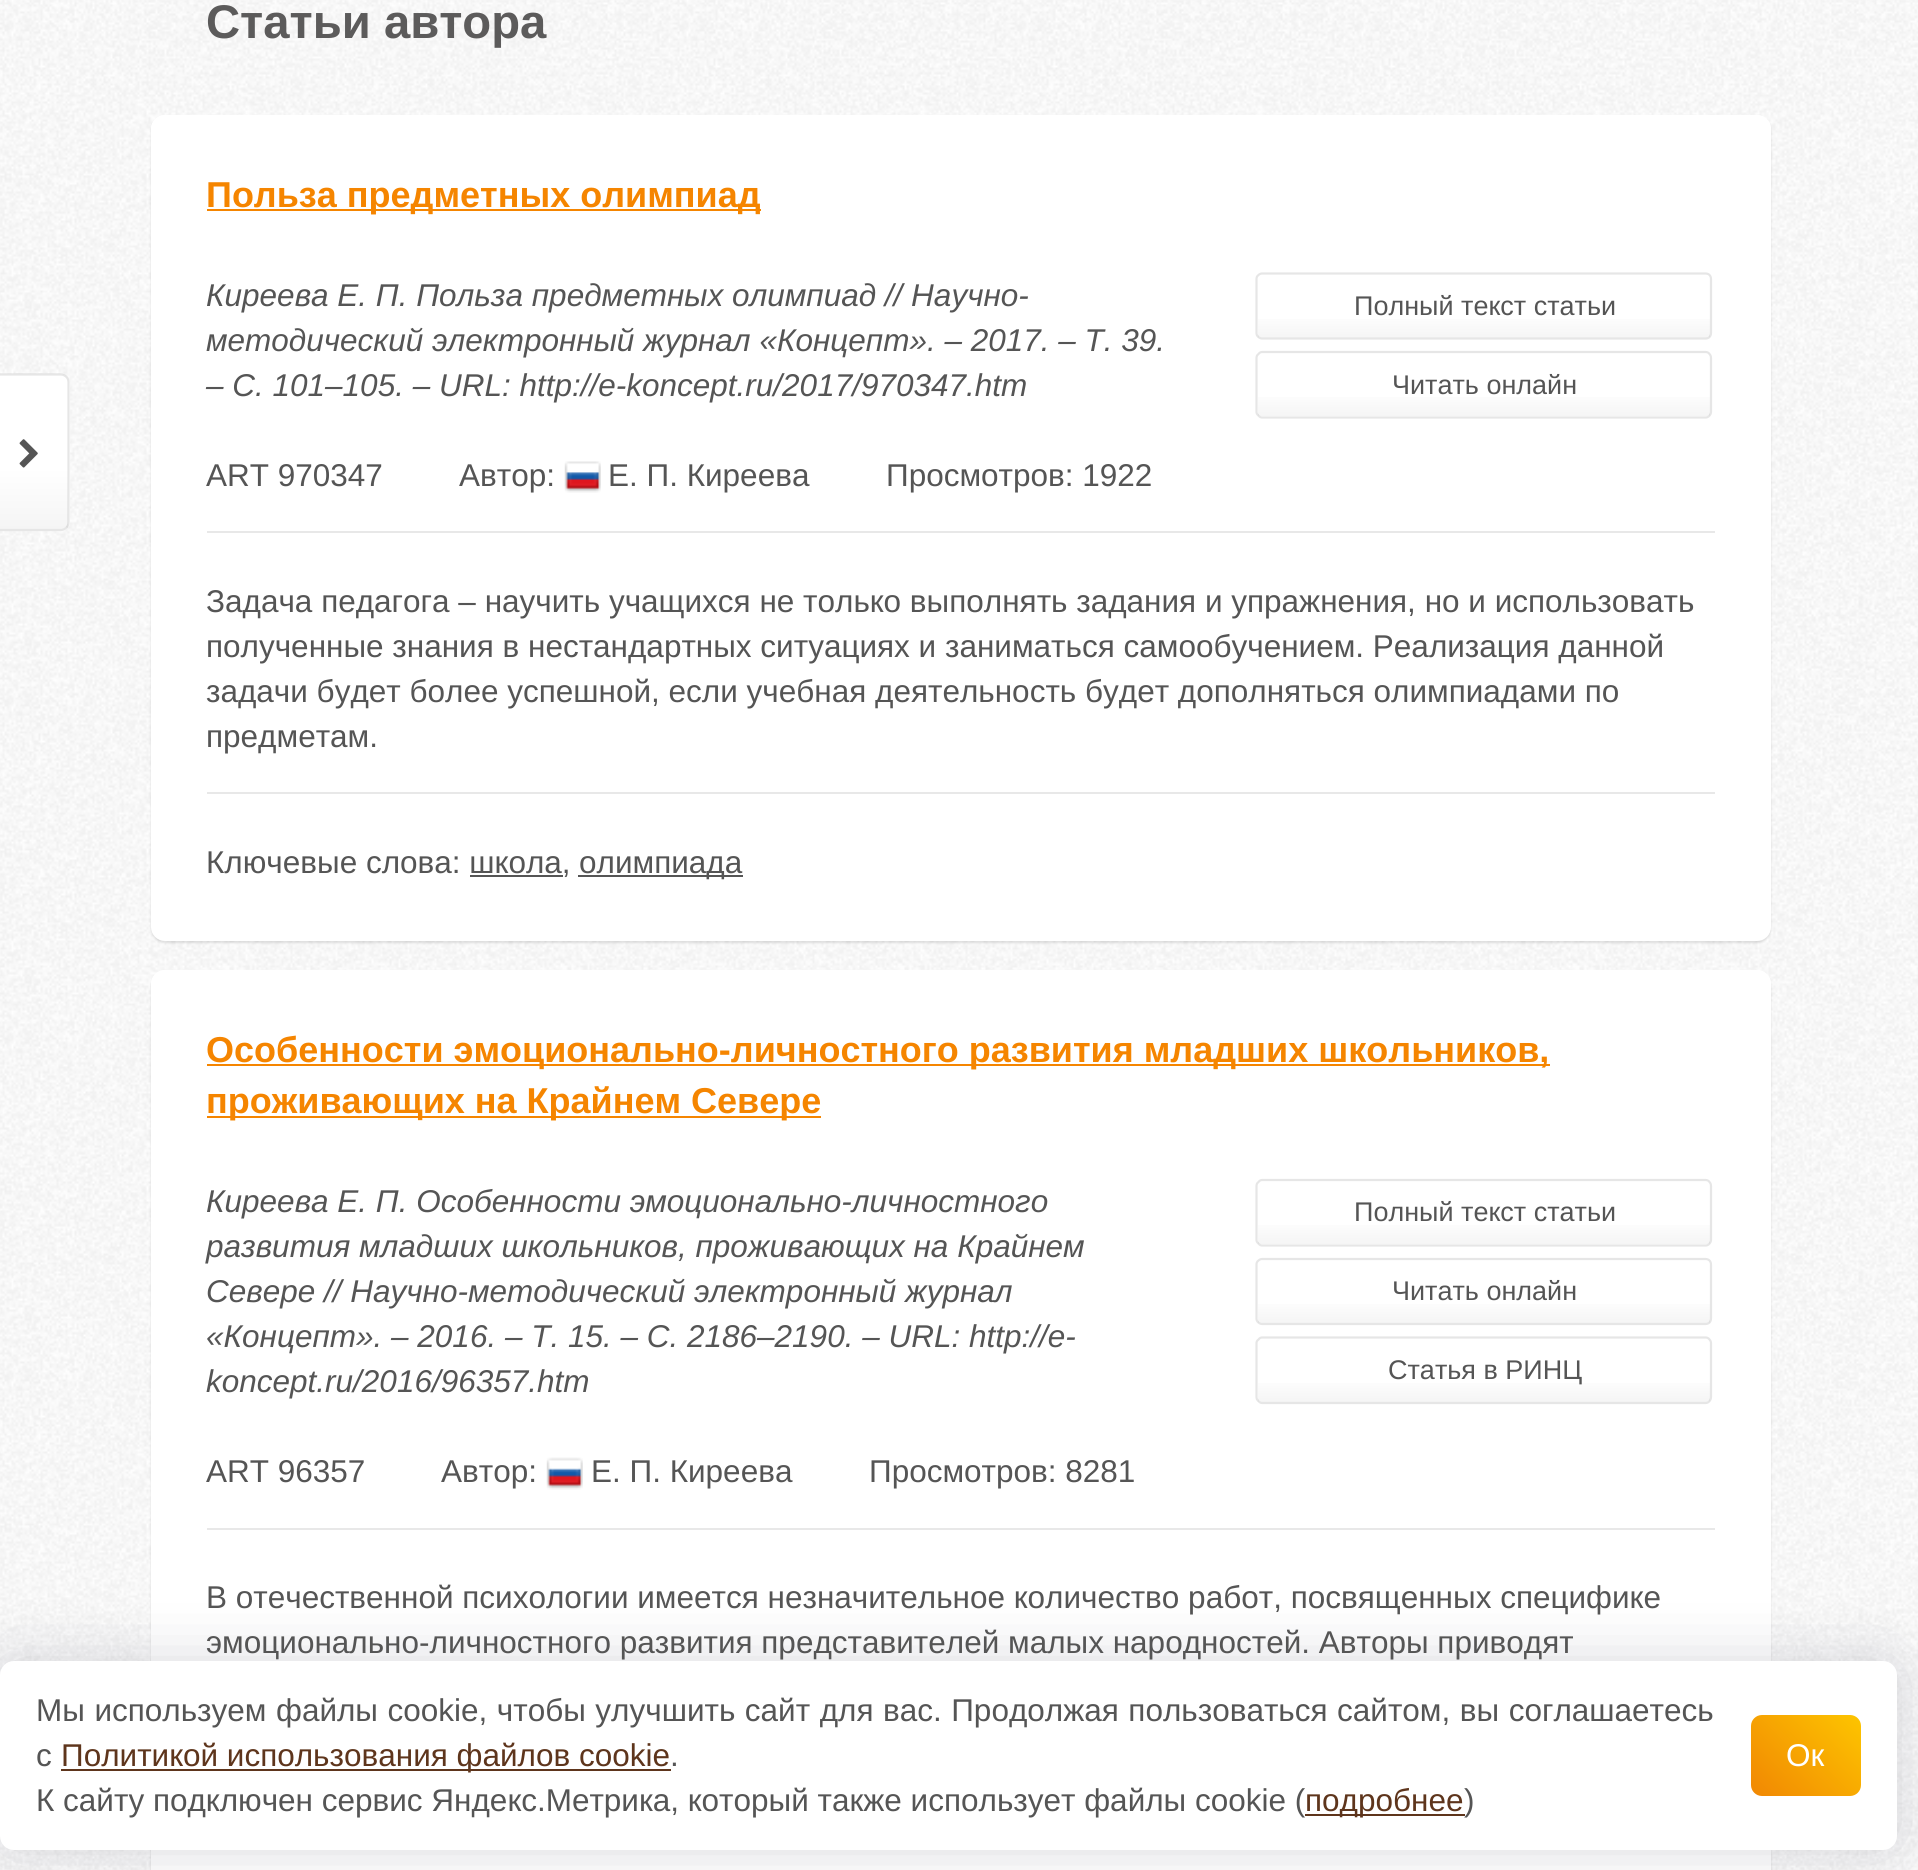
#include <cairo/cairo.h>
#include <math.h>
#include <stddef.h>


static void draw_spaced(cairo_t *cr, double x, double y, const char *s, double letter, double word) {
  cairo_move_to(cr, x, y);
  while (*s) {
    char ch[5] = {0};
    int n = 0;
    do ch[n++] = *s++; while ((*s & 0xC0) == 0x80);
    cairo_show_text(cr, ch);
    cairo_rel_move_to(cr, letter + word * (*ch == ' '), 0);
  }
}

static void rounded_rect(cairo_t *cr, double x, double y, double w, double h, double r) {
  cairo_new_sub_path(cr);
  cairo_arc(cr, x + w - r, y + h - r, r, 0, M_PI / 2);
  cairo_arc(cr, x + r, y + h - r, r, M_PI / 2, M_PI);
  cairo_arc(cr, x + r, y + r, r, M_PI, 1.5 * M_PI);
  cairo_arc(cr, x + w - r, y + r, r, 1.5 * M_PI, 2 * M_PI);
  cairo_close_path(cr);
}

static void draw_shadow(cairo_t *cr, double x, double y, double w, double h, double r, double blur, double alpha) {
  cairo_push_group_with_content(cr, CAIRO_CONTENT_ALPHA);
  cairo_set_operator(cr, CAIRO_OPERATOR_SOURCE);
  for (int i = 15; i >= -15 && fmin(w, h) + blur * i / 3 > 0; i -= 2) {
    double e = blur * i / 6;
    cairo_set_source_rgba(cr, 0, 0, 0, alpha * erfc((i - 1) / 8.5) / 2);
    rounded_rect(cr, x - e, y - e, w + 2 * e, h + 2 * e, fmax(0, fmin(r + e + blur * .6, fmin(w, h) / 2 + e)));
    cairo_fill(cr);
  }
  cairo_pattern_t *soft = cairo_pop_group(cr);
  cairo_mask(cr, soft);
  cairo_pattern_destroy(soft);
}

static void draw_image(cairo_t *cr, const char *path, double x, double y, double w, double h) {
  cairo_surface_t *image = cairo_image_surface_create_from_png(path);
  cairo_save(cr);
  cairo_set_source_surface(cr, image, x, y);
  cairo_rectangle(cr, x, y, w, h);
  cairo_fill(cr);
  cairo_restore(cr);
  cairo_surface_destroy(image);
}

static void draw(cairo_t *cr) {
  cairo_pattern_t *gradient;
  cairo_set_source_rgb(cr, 1, 1, 1);
  cairo_paint(cr);
  draw_image(cr, "images/1.png", 0, 0, 1918, 1870);
  cairo_set_source_rgb(cr, 1, 1, 1);
  rounded_rect(cr, -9, 374, 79, 157, 9);
  cairo_fill(cr);
  cairo_save(cr);
  rounded_rect(cr, -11, 374, 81, 157, 9);
  cairo_clip(cr);
  gradient = cairo_pattern_create_linear(29, 376, 29, 529);
  cairo_pattern_add_color_stop_rgba(gradient, 0, 1, 1, 1, 1);
  cairo_pattern_add_color_stop_rgba(gradient, 0.6, 1, 1, 1, 1);
  cairo_pattern_add_color_stop_rgba(gradient, 1, 245 / 255.0, 245 / 255.0, 245 / 255.0, 1);
  cairo_set_source(cr, gradient);
  cairo_pattern_destroy(gradient);
  cairo_rectangle(cr, 0, 376, 68, 153);
  cairo_fill(cr);
  cairo_restore(cr);
  cairo_new_path(cr);
  cairo_move_to(cr, 66.5, 527.5);
  cairo_curve_to(cr, 65, 529, 63, 530, 61, 530);
  cairo_line_to(cr, -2, 530);
  cairo_curve_to(cr, -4.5, 530, -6.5, 529, -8, 527.5);
  cairo_set_source_rgb(cr, 230 / 255.0, 230 / 255.0, 230 / 255.0);
  cairo_set_line_width(cr, 2.2);
  cairo_stroke(cr);
  cairo_new_path(cr);
  cairo_move_to(cr, -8, 527.5);
  cairo_curve_to(cr, -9.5, 526, -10, 524, -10, 522);
  cairo_line_to(cr, -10, 382.5);
  cairo_curve_to(cr, -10, 380.5, -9.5, 378.5, -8, 377);
  cairo_curve_to(cr, -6.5, 375.5, -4.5, 374.5, -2.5, 374.5);
  cairo_line_to(cr, 61, 374.5);
  cairo_curve_to(cr, 63, 374.5, 65, 375.5, 66.5, 377);
  cairo_curve_to(cr, 68, 378.5, 68.5, 380.5, 68.5, 382.5);
  cairo_line_to(cr, 68.5, 522);
  cairo_curve_to(cr, 68.5, 524, 68, 526, 66.5, 527.5);
  cairo_set_source_rgba(cr, 0, 0, 0, 0.1);
  cairo_stroke(cr);
  draw_image(cr, "images/2.png", 19, 439, 19, 29);
  cairo_set_source_rgb(cr, 0, 0, 0);
  draw_shadow(cr, 151, 117, 1620, 826, 14, 1, 0.11);
  cairo_set_source_rgb(cr, 1, 1, 1);
  rounded_rect(cr, 151, 115, 1620, 826, 14);
  cairo_fill(cr);
  cairo_new_path(cr);
  cairo_move_to(cr, 165, 115);
  cairo_line_to(cr, 1757, 115);
  cairo_curve_to(cr, 1764.5, 115, 1771, 121.5, 1771, 129);
  cairo_line_to(cr, 1771, 223);
  cairo_line_to(cr, 151, 223);
  cairo_line_to(cr, 151, 129);
  cairo_curve_to(cr, 151, 121.5, 157.5, 115, 165, 115);
  cairo_close_path(cr);
  cairo_fill(cr);
  cairo_set_source_rgb(cr, 245 / 255.0, 133 / 255.0, 0);
  cairo_rectangle(cr, 207, 209, 554, 2);
  cairo_fill(cr);
  gradient = cairo_pattern_create_linear(1484, 274, 1484, 338);
  cairo_pattern_add_color_stop_rgba(gradient, 0, 1, 1, 1, 1);
  cairo_pattern_add_color_stop_rgba(gradient, 0.6, 1, 1, 1, 1);
  cairo_pattern_add_color_stop_rgba(gradient, 1, 245 / 255.0, 245 / 255.0, 245 / 255.0, 1);
  cairo_set_source(cr, gradient);
  cairo_pattern_destroy(gradient);
  cairo_rectangle(cr, 1258, 319, 452, 19);
  cairo_fill(cr);
  cairo_new_path(cr);
  cairo_move_to(cr, 1709.5, 337);
  cairo_curve_to(cr, 1708.5, 338, 1707, 338.5, 1705.5, 338.5);
  cairo_line_to(cr, 1262, 338.5);
  cairo_curve_to(cr, 1261, 338.5, 1259.5, 338, 1258.5, 337);
  cairo_set_source_rgb(cr, 230 / 255.0, 230 / 255.0, 230 / 255.0);
  cairo_stroke(cr);
  cairo_new_path(cr);
  cairo_move_to(cr, 1258.5, 337);
  cairo_curve_to(cr, 1257, 336, 1256.5, 334.5, 1256.5, 333);
  cairo_line_to(cr, 1256.5, 279);
  cairo_curve_to(cr, 1256.5, 277.5, 1257, 276, 1258.5, 275);
  cairo_curve_to(cr, 1259.5, 274, 1261, 273.5, 1262, 273.5);
  cairo_line_to(cr, 1705.5, 273.5);
  cairo_curve_to(cr, 1707, 273.5, 1708.5, 274, 1709.5, 275);
  cairo_curve_to(cr, 1710.5, 276, 1711, 277.5, 1711, 279);
  cairo_line_to(cr, 1711, 333);
  cairo_curve_to(cr, 1711, 334.5, 1710.5, 336, 1709.5, 337);
  cairo_set_source_rgba(cr, 0, 0, 0, 0.1);
  cairo_stroke(cr);
  gradient = cairo_pattern_create_linear(1484, 353, 1484, 416);
  cairo_pattern_add_color_stop_rgba(gradient, 0, 1, 1, 1, 1);
  cairo_pattern_add_color_stop_rgba(gradient, 0.6, 1, 1, 1, 1);
  cairo_pattern_add_color_stop_rgba(gradient, 1, 245 / 255.0, 245 / 255.0, 245 / 255.0, 1);
  cairo_set_source(cr, gradient);
  cairo_pattern_destroy(gradient);
  cairo_rectangle(cr, 1258, 397, 452, 19);
  cairo_fill(cr);
  cairo_new_path(cr);
  cairo_move_to(cr, 1709.5, 415.5);
  cairo_curve_to(cr, 1708.5, 417, 1707, 417.5, 1705.5, 417.5);
  cairo_line_to(cr, 1262, 417.5);
  cairo_curve_to(cr, 1261, 417.5, 1259.5, 417, 1258.5, 415.5);
  cairo_set_source_rgb(cr, 230 / 255.0, 230 / 255.0, 230 / 255.0);
  cairo_stroke(cr);
  cairo_new_path(cr);
  cairo_move_to(cr, 1258.5, 415.5);
  cairo_curve_to(cr, 1257, 414.5, 1256.5, 413, 1256.5, 412);
  cairo_line_to(cr, 1256.5, 358);
  cairo_curve_to(cr, 1256.5, 356.5, 1257, 355, 1258.5, 354);
  cairo_curve_to(cr, 1259.5, 352.5, 1261, 352, 1262, 352);
  cairo_line_to(cr, 1705.5, 352);
  cairo_curve_to(cr, 1707, 352, 1708.5, 352.5, 1709.5, 354);
  cairo_curve_to(cr, 1710.5, 355, 1711, 356.5, 1711, 358);
  cairo_line_to(cr, 1711, 412);
  cairo_curve_to(cr, 1711, 413, 1710.5, 414.5, 1709.5, 415.5);
  cairo_set_source_rgba(cr, 0, 0, 0, 0.1);
  cairo_stroke(cr);
  draw_image(cr, "images/3.png", 564, 461, 37, 32);
  cairo_set_source_rgb(cr, 232 / 255.0, 232 / 255.0, 232 / 255.0);
  cairo_rectangle(cr, 207, 531, 1508, 2);
  cairo_fill(cr);
  cairo_rectangle(cr, 207, 792, 1508, 2);
  cairo_fill(cr);
  cairo_set_source_rgb(cr, 85 / 255.0, 85 / 255.0, 85 / 255.0);
  cairo_rectangle(cr, 578, 875, 165, 2);
  cairo_fill(cr);
  cairo_rectangle(cr, 470, 875, 93, 2);
  cairo_fill(cr);
  cairo_set_source_rgb(cr, 0, 0, 0);
  draw_shadow(cr, 151, 972, 1620, 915, 14, 1, 0.11);
  cairo_set_source_rgb(cr, 1, 1, 1);
  rounded_rect(cr, 151, 970, 1620, 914, 14);
  cairo_fill(cr);
  cairo_new_path(cr);
  cairo_move_to(cr, 165, 970);
  cairo_line_to(cr, 1757, 970);
  cairo_curve_to(cr, 1764.5, 970, 1771, 976.5, 1771, 984);
  cairo_line_to(cr, 1771, 1130);
  cairo_line_to(cr, 151, 1130);
  cairo_line_to(cr, 151, 984);
  cairo_curve_to(cr, 151, 976.5, 157.5, 970, 165, 970);
  cairo_close_path(cr);
  cairo_fill(cr);
  cairo_set_source_rgb(cr, 245 / 255.0, 133 / 255.0, 0);
  cairo_rectangle(cr, 207, 1064, 1343, 2);
  cairo_fill(cr);
  cairo_rectangle(cr, 207, 1116, 614, 2);
  cairo_fill(cr);
  gradient = cairo_pattern_create_linear(1484, 1181, 1484, 1244);
  cairo_pattern_add_color_stop_rgba(gradient, 0, 1, 1, 1, 1);
  cairo_pattern_add_color_stop_rgba(gradient, 0.6, 1, 1, 1, 1);
  cairo_pattern_add_color_stop_rgba(gradient, 1, 245 / 255.0, 245 / 255.0, 245 / 255.0, 1);
  cairo_set_source(cr, gradient);
  cairo_pattern_destroy(gradient);
  cairo_rectangle(cr, 1258, 1225, 452, 19);
  cairo_fill(cr);
  cairo_new_path(cr);
  cairo_move_to(cr, 1709.5, 1243.5);
  cairo_curve_to(cr, 1708.5, 1245, 1707, 1245.5, 1705.5, 1245.5);
  cairo_line_to(cr, 1262, 1245.5);
  cairo_curve_to(cr, 1261, 1245.5, 1259.5, 1245, 1258.5, 1243.5);
  cairo_set_source_rgb(cr, 230 / 255.0, 230 / 255.0, 230 / 255.0);
  cairo_stroke(cr);
  cairo_new_path(cr);
  cairo_move_to(cr, 1258.5, 1243.5);
  cairo_curve_to(cr, 1257, 1242.5, 1256.5, 1241, 1256.5, 1240);
  cairo_line_to(cr, 1256.5, 1186);
  cairo_curve_to(cr, 1256.5, 1184.5, 1257, 1183, 1258.5, 1182);
  cairo_curve_to(cr, 1259.5, 1180.5, 1261, 1180, 1262, 1180);
  cairo_line_to(cr, 1705.5, 1180);
  cairo_curve_to(cr, 1707, 1180, 1708.5, 1180.5, 1709.5, 1182);
  cairo_curve_to(cr, 1710.5, 1183, 1711, 1184.5, 1711, 1186);
  cairo_line_to(cr, 1711, 1240);
  cairo_curve_to(cr, 1711, 1241, 1710.5, 1242.5, 1709.5, 1243.5);
  cairo_set_source_rgba(cr, 0, 0, 0, 0.1);
  cairo_stroke(cr);
  gradient = cairo_pattern_create_linear(1484, 1260, 1484, 1323);
  cairo_pattern_add_color_stop_rgba(gradient, 0, 1, 1, 1, 1);
  cairo_pattern_add_color_stop_rgba(gradient, 0.6, 1, 1, 1, 1);
  cairo_pattern_add_color_stop_rgba(gradient, 1, 245 / 255.0, 245 / 255.0, 245 / 255.0, 1);
  cairo_set_source(cr, gradient);
  cairo_pattern_destroy(gradient);
  cairo_rectangle(cr, 1258, 1304, 452, 19);
  cairo_fill(cr);
  cairo_new_path(cr);
  cairo_move_to(cr, 1709.5, 1322.5);
  cairo_curve_to(cr, 1708.5, 1323.5, 1707, 1324, 1705.5, 1324);
  cairo_line_to(cr, 1262, 1324);
  cairo_curve_to(cr, 1261, 1324, 1259.5, 1323.5, 1258.5, 1322.5);
  cairo_set_source_rgb(cr, 230 / 255.0, 230 / 255.0, 230 / 255.0);
  cairo_stroke(cr);
  cairo_new_path(cr);
  cairo_move_to(cr, 1258.5, 1322.5);
  cairo_curve_to(cr, 1257, 1321.5, 1256.5, 1320, 1256.5, 1318.5);
  cairo_line_to(cr, 1256.5, 1264.5);
  cairo_curve_to(cr, 1256.5, 1263, 1257, 1261.5, 1258.5, 1260.5);
  cairo_curve_to(cr, 1259.5, 1259.5, 1261, 1259, 1262, 1259);
  cairo_line_to(cr, 1705.5, 1259);
  cairo_curve_to(cr, 1707, 1259, 1708.5, 1259.5, 1709.5, 1260.5);
  cairo_curve_to(cr, 1710.5, 1261.5, 1711, 1263, 1711, 1264.5);
  cairo_line_to(cr, 1711, 1318.5);
  cairo_curve_to(cr, 1711, 1320, 1710.5, 1321.5, 1709.5, 1322.5);
  cairo_set_source_rgba(cr, 0, 0, 0, 0.1);
  cairo_stroke(cr);
  gradient = cairo_pattern_create_linear(1484, 1339, 1484, 1402);
  cairo_pattern_add_color_stop_rgba(gradient, 0, 1, 1, 1, 1);
  cairo_pattern_add_color_stop_rgba(gradient, 0.6, 1, 1, 1, 1);
  cairo_pattern_add_color_stop_rgba(gradient, 1, 245 / 255.0, 245 / 255.0, 245 / 255.0, 1);
  cairo_set_source(cr, gradient);
  cairo_pattern_destroy(gradient);
  cairo_rectangle(cr, 1258, 1383, 452, 19);
  cairo_fill(cr);
  cairo_new_path(cr);
  cairo_move_to(cr, 1709.5, 1401);
  cairo_curve_to(cr, 1708.5, 1402.5, 1707, 1403, 1705.5, 1403);
  cairo_line_to(cr, 1262, 1403);
  cairo_curve_to(cr, 1261, 1403, 1259.5, 1402.5, 1258.5, 1401);
  cairo_set_source_rgb(cr, 230 / 255.0, 230 / 255.0, 230 / 255.0);
  cairo_stroke(cr);
  cairo_new_path(cr);
  cairo_move_to(cr, 1258.5, 1401);
  cairo_curve_to(cr, 1257, 1400, 1256.5, 1398.5, 1256.5, 1397);
  cairo_line_to(cr, 1256.5, 1343);
  cairo_curve_to(cr, 1256.5, 1342, 1257, 1340.5, 1258.5, 1339.5);
  cairo_curve_to(cr, 1259.5, 1338, 1261, 1337.5, 1262, 1337.5);
  cairo_line_to(cr, 1705.5, 1337.5);
  cairo_curve_to(cr, 1707, 1337.5, 1708.5, 1338, 1709.5, 1339.5);
  cairo_curve_to(cr, 1710.5, 1340.5, 1711, 1342, 1711, 1343);
  cairo_line_to(cr, 1711, 1397);
  cairo_curve_to(cr, 1711, 1398.5, 1710.5, 1400, 1709.5, 1401);
  cairo_set_source_rgba(cr, 0, 0, 0, 0.1);
  cairo_stroke(cr);
  draw_image(cr, "images/4.png", 546, 1457, 37, 33);
  cairo_set_source_rgb(cr, 232 / 255.0, 232 / 255.0, 232 / 255.0);
  cairo_rectangle(cr, 207, 1528, 1508, 2);
  cairo_fill(cr);
  cairo_set_source_rgb(cr, 5 / 255.0, 0, 31 / 255.0);
  draw_shadow(cr, 0, 1661, 1897, 189, 14, 31.5, 0.15);
  cairo_set_source_rgb(cr, 1, 1, 1);
  rounded_rect(cr, 0, 1661, 1897, 189, 14);
  cairo_fill(cr);
  cairo_set_source_rgb(cr, 94 / 255.0, 53 / 255.0, 28 / 255.0);
  cairo_rectangle(cr, 61, 1769, 610, 2);
  cairo_fill(cr);
  gradient = cairo_pattern_create_linear(1758, 1803, 1853, 1707);
  cairo_pattern_add_color_stop_rgba(gradient, 0, 241 / 255.0, 135 / 255.0, 3 / 255.0, 1);
  cairo_pattern_add_color_stop_rgba(gradient, 1, 253 / 255.0, 197 / 255.0, 0, 1);
  cairo_set_source(cr, gradient);
  cairo_pattern_destroy(gradient);
  rounded_rect(cr, 1751, 1715, 110, 81, 11);
  cairo_fill(cr);
  cairo_select_font_face(cr, "Liberation Sans", CAIRO_FONT_SLANT_NORMAL, CAIRO_FONT_WEIGHT_BOLD);
  cairo_set_font_size(cr, 47.25);
  cairo_set_source_rgb(cr, 92 / 255.0, 91 / 255.0, 91 / 255.0);
  cairo_move_to(cr, 206, 38);
  cairo_show_text(cr, "Статьи автора");
  cairo_set_font_size(cr, 36);
  cairo_set_source_rgb(cr, 245 / 255.0, 133 / 255.0, 0);
  cairo_move_to(cr, 206, 207);
  cairo_show_text(cr, "Польза предметных олимпиад");
  cairo_select_font_face(cr, "Liberation Sans", CAIRO_FONT_SLANT_ITALIC, CAIRO_FONT_WEIGHT_NORMAL);
  cairo_set_font_size(cr, 31.5);
  cairo_set_source_rgb(cr, 85 / 255.0, 85 / 255.0, 85 / 255.0);
  cairo_move_to(cr, 206, 306);
  cairo_show_text(cr, "Киреева Е. П. Польза предметных олимпиад // Научно-");
  cairo_move_to(cr, 206, 351);
  cairo_show_text(cr, "методический электронный журнал «Концепт». – 2017. – Т. 39.");
  cairo_move_to(cr, 206, 396);
  cairo_show_text(cr, "– С. 101–105. – URL: http://e-koncept.ru/2017/970347.htm");
  cairo_select_font_face(cr, "Liberation Sans", CAIRO_FONT_SLANT_NORMAL, CAIRO_FONT_WEIGHT_NORMAL);
  cairo_set_font_size(cr, 27);
  cairo_move_to(cr, 1354, 315);
  cairo_show_text(cr, "Полный текст статьи");
  cairo_move_to(cr, 1392, 394);
  cairo_show_text(cr, "Читать онлайн");
  cairo_set_font_size(cr, 31.5);
  cairo_move_to(cr, 206, 486);
  cairo_show_text(cr, "ART 970347");
  cairo_move_to(cr, 459, 486);
  cairo_show_text(cr, "Автор:");
  cairo_move_to(cr, 608, 486);
  cairo_show_text(cr, "Е. П. Киреева");
  cairo_move_to(cr, 886, 486);
  cairo_show_text(cr, "Просмотров: 1922");
  cairo_move_to(cr, 206, 612);
  cairo_show_text(cr, "Задача педагога – научить учащихся не только выполнять задания и упражнения, но и использовать");
  cairo_move_to(cr, 206, 657);
  cairo_show_text(cr, "полученные знания в нестандартных ситуациях и заниматься самообучением. Реализация данной");
  cairo_move_to(cr, 206, 702);
  cairo_show_text(cr, "задачи будет более успешной, если учебная деятельность будет дополняться олимпиадами по");
  cairo_move_to(cr, 206, 747);
  cairo_show_text(cr, "предметам.");
  cairo_move_to(cr, 206, 873);
  cairo_show_text(cr, "Ключевые слова: школа,");
  cairo_move_to(cr, 579, 873);
  cairo_show_text(cr, "олимпиада");
  cairo_select_font_face(cr, "Liberation Sans", CAIRO_FONT_SLANT_NORMAL, CAIRO_FONT_WEIGHT_BOLD);
  cairo_set_font_size(cr, 36);
  cairo_set_source_rgb(cr, 245 / 255.0, 133 / 255.0, 0);
  cairo_move_to(cr, 206, 1062);
  cairo_show_text(cr, "Особенности эмоционально-личностного развития младших школьников,");
  cairo_move_to(cr, 206, 1113);
  cairo_show_text(cr, "проживающих на Крайнем Севере");
  cairo_select_font_face(cr, "Liberation Sans", CAIRO_FONT_SLANT_ITALIC, CAIRO_FONT_WEIGHT_NORMAL);
  cairo_set_font_size(cr, 31.5);
  cairo_set_source_rgb(cr, 85 / 255.0, 85 / 255.0, 85 / 255.0);
  cairo_move_to(cr, 206, 1212);
  cairo_show_text(cr, "Киреева Е. П. Особенности эмоционально-личностного");
  cairo_move_to(cr, 206, 1257);
  cairo_show_text(cr, "развития младших школьников, проживающих на Крайнем");
  cairo_move_to(cr, 206, 1302);
  cairo_show_text(cr, "Севере // Научно-методический электронный журнал");
  cairo_move_to(cr, 206, 1347);
  cairo_show_text(cr, "«Концепт». – 2016. – Т. 15. – С. 2186–2190. – URL: http://e-");
  cairo_move_to(cr, 206, 1392);
  cairo_show_text(cr, "koncept.ru/2016/96357.htm");
  cairo_select_font_face(cr, "Liberation Sans", CAIRO_FONT_SLANT_NORMAL, CAIRO_FONT_WEIGHT_NORMAL);
  cairo_set_font_size(cr, 27);
  cairo_move_to(cr, 1354, 1221);
  cairo_show_text(cr, "Полный текст статьи");
  cairo_move_to(cr, 1392, 1300);
  cairo_show_text(cr, "Читать онлайн");
  cairo_move_to(cr, 1388, 1379);
  cairo_show_text(cr, "Статья в РИНЦ");
  cairo_set_font_size(cr, 31.5);
  cairo_move_to(cr, 206, 1482);
  cairo_show_text(cr, "ART 96357");
  cairo_move_to(cr, 441, 1482);
  cairo_show_text(cr, "Автор:");
  cairo_move_to(cr, 591, 1482);
  cairo_show_text(cr, "Е. П. Киреева");
  cairo_move_to(cr, 869, 1482);
  cairo_show_text(cr, "Просмотров: 8281");
  cairo_move_to(cr, 206, 1608);
  cairo_show_text(cr, "В отечественной психологии имеется незначительное количество работ, посвященных специфике");
  cairo_move_to(cr, 206, 1653);
  cairo_show_text(cr, "эмоционально-личностного развития представителей малых народностей. Авторы приводят");
  draw_spaced(cr, 36, 1721, "Мы используем файлы cookie, чтобы улучшить сайт для вас. Продолжая пользоваться сайтом, вы соглашаетесь", 0, 0.75);
  cairo_move_to(cr, 36, 1766);
  cairo_show_text(cr, "с");
  cairo_set_source_rgb(cr, 94 / 255.0, 53 / 255.0, 28 / 255.0);
  cairo_move_to(cr, 61, 1766);
  cairo_show_text(cr, "Политикой использования файлов cookie");
  cairo_set_source_rgb(cr, 85 / 255.0, 85 / 255.0, 85 / 255.0);
  cairo_move_to(cr, 670, 1766);
  cairo_show_text(cr, ".");
  cairo_move_to(cr, 36, 1811);
  cairo_show_text(cr, "К сайту подключен сервис Яндекс.Метрика, который также использует файлы cookie (");
  cairo_set_source_rgb(cr, 94 / 255.0, 53 / 255.0, 28 / 255.0);
  cairo_rectangle(cr, 1305, 1814, 160, 2);
  cairo_fill(cr);
  cairo_move_to(cr, 1305, 1811);
  cairo_show_text(cr, "подробнее");
  cairo_set_source_rgb(cr, 85 / 255.0, 85 / 255.0, 85 / 255.0);
  cairo_move_to(cr, 1464, 1811);
  cairo_show_text(cr, ")");
  cairo_set_source_rgb(cr, 1, 1, 1);
  cairo_move_to(cr, 1786, 1766);
  cairo_show_text(cr, "Ок");
}

int main(void) {
  cairo_surface_t *surface = cairo_image_surface_create(CAIRO_FORMAT_RGB24, 1918, 1870);
  cairo_t *cr = cairo_create(surface);
  cairo_font_options_t *options = cairo_font_options_create();
  cairo_font_options_set_hint_metrics(options, CAIRO_HINT_METRICS_OFF);
  cairo_font_options_set_hint_style(options, CAIRO_HINT_STYLE_NONE);
  cairo_set_font_options(cr, options);
  cairo_set_miter_limit(cr, 4);
  draw(cr);
  cairo_surface_write_to_png(surface, "out.png");
  cairo_font_options_destroy(options);
  cairo_destroy(cr);
  cairo_surface_destroy(surface);
  return 0;
}
